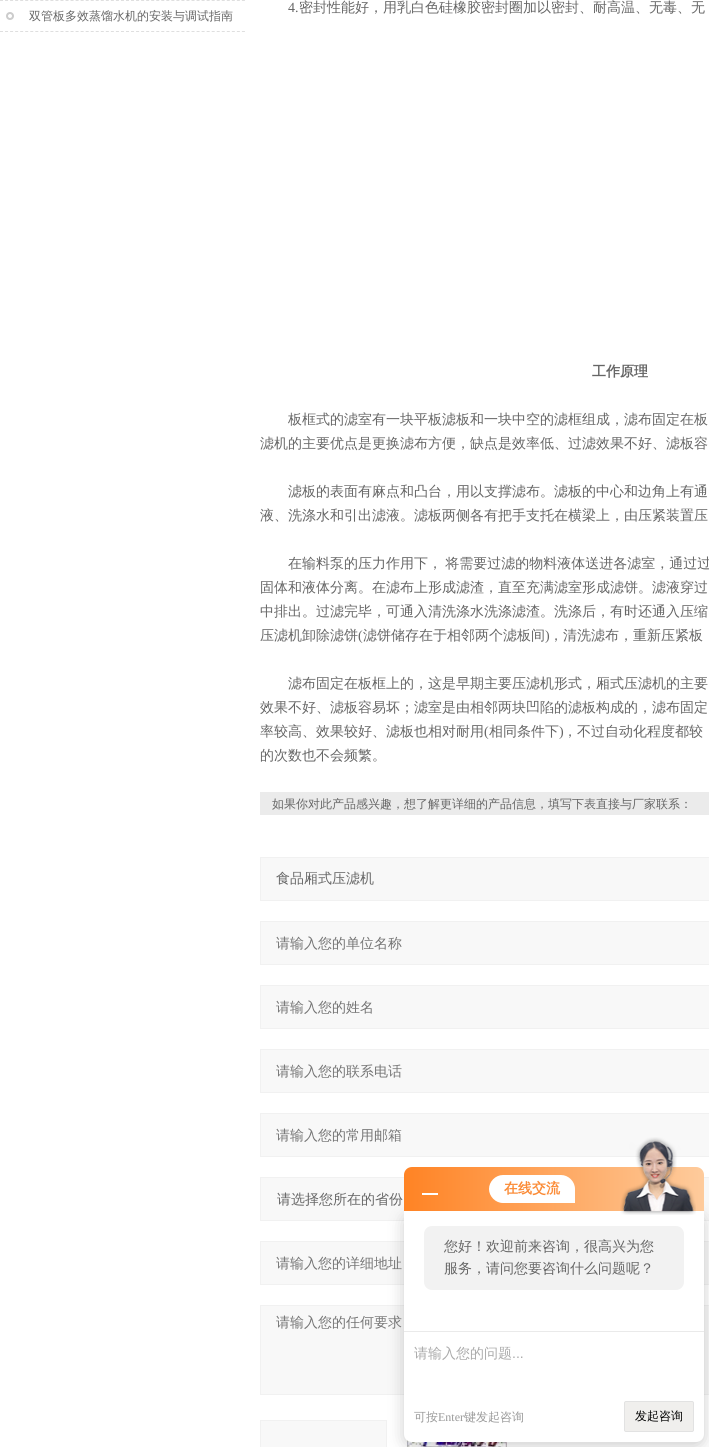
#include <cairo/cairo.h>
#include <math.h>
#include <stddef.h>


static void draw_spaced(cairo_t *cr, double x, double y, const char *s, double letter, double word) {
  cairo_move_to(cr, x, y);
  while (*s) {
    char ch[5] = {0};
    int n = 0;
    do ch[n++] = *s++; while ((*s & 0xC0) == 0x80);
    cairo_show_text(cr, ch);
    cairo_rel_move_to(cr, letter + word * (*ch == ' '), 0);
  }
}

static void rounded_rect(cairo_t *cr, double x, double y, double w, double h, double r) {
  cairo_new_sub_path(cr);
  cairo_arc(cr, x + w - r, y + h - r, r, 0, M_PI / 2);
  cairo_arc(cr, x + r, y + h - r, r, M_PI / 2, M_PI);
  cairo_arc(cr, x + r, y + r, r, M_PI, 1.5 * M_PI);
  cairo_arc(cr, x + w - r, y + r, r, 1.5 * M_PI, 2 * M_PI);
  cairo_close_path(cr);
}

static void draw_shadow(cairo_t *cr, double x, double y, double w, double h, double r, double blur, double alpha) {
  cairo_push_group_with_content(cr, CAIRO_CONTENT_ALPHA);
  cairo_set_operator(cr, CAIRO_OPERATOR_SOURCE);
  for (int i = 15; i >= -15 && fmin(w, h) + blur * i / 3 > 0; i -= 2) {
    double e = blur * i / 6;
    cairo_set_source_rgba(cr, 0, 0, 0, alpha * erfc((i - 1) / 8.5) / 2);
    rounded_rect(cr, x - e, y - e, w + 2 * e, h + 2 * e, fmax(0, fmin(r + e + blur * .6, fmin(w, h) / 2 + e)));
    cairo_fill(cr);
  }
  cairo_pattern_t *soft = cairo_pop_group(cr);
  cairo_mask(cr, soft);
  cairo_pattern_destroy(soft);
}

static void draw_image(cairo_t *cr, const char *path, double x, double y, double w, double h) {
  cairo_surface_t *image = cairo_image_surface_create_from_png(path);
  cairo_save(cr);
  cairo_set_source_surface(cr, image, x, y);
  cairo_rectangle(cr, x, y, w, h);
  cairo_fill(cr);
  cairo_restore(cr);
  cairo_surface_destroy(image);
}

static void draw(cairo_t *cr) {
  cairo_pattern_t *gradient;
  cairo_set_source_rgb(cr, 1, 1, 1);
  cairo_paint(cr);
  cairo_new_path(cr);
  cairo_move_to(cr, 0, 0.5);
  cairo_line_to(cr, 245, 0.5);
  cairo_set_source_rgb(cr, 223 / 255.0, 223 / 255.0, 223 / 255.0);
  cairo_set_line_width(cr, 1);
  cairo_set_dash(cr, (double[]){3, 2.04}, 2, 0);
  cairo_stroke(cr);
  cairo_new_path(cr);
  cairo_move_to(cr, 0, 31.5);
  cairo_line_to(cr, 245, 31.5);
  cairo_stroke(cr);
  draw_image(cr, "images/1.png", 6, 12, 8, 8);
  cairo_set_source_rgb(cr, 235 / 255.0, 235 / 255.0, 235 / 255.0);
  cairo_rectangle(cr, 260, 792, 449, 23);
  cairo_fill(cr);
  cairo_set_source_rgb(cr, 248 / 255.0, 248 / 255.0, 248 / 255.0);
  cairo_rectangle(cr, 260.5, 857.5, 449, 43);
  cairo_fill_preserve(cr);
  cairo_set_source_rgb(cr, 241 / 255.0, 241 / 255.0, 241 / 255.0);
  cairo_set_dash(cr, NULL, 0, 0);
  cairo_stroke(cr);
  cairo_set_source_rgb(cr, 248 / 255.0, 248 / 255.0, 248 / 255.0);
  cairo_rectangle(cr, 260.5, 921.5, 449, 43);
  cairo_fill_preserve(cr);
  cairo_set_source_rgb(cr, 241 / 255.0, 241 / 255.0, 241 / 255.0);
  cairo_stroke(cr);
  cairo_set_source_rgb(cr, 248 / 255.0, 248 / 255.0, 248 / 255.0);
  cairo_rectangle(cr, 260.5, 985.5, 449, 43);
  cairo_fill_preserve(cr);
  cairo_set_source_rgb(cr, 241 / 255.0, 241 / 255.0, 241 / 255.0);
  cairo_stroke(cr);
  cairo_set_source_rgb(cr, 248 / 255.0, 248 / 255.0, 248 / 255.0);
  cairo_rectangle(cr, 260.5, 1049.5, 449, 43);
  cairo_fill_preserve(cr);
  cairo_set_source_rgb(cr, 241 / 255.0, 241 / 255.0, 241 / 255.0);
  cairo_stroke(cr);
  cairo_set_source_rgb(cr, 248 / 255.0, 248 / 255.0, 248 / 255.0);
  cairo_rectangle(cr, 260.5, 1113.5, 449, 43);
  cairo_fill_preserve(cr);
  cairo_set_source_rgb(cr, 241 / 255.0, 241 / 255.0, 241 / 255.0);
  cairo_stroke(cr);
  cairo_set_source_rgb(cr, 248 / 255.0, 248 / 255.0, 248 / 255.0);
  cairo_rectangle(cr, 260.5, 1177.5, 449, 43);
  cairo_fill_preserve(cr);
  cairo_set_source_rgb(cr, 241 / 255.0, 241 / 255.0, 241 / 255.0);
  cairo_stroke(cr);
  cairo_set_source_rgb(cr, 248 / 255.0, 248 / 255.0, 248 / 255.0);
  cairo_rectangle(cr, 260.5, 1241.5, 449, 43);
  cairo_fill_preserve(cr);
  cairo_set_source_rgb(cr, 241 / 255.0, 241 / 255.0, 241 / 255.0);
  cairo_stroke(cr);
  cairo_set_source_rgb(cr, 248 / 255.0, 248 / 255.0, 248 / 255.0);
  cairo_rectangle(cr, 260.5, 1305.5, 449, 89);
  cairo_fill_preserve(cr);
  cairo_set_source_rgb(cr, 241 / 255.0, 241 / 255.0, 241 / 255.0);
  cairo_stroke(cr);
  cairo_set_source_rgb(cr, 248 / 255.0, 248 / 255.0, 248 / 255.0);
  cairo_rectangle(cr, 260.5, 1420.5, 126, 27);
  cairo_fill_preserve(cr);
  cairo_set_source_rgb(cr, 241 / 255.0, 241 / 255.0, 241 / 255.0);
  cairo_stroke(cr);
  draw_image(cr, "images/2.png", 407, 1440, 100, 7);
  cairo_set_source_rgb(cr, 0, 0, 0);
  draw_shadow(cr, 404, 1215, 300, 231, 8, 8, 0.2);
  gradient = cairo_pattern_create_linear(404, 1189, 704, 1189);
  cairo_pattern_add_color_stop_rgba(gradient, 0, 1, 131 / 255.0, 36 / 255.0, 1);
  cairo_pattern_add_color_stop_rgba(gradient, 1, 254 / 255.0, 203 / 255.0, 156 / 255.0, 1);
  cairo_set_source(cr, gradient);
  cairo_pattern_destroy(gradient);
  cairo_new_path(cr);
  cairo_move_to(cr, 412, 1167);
  cairo_line_to(cr, 696, 1167);
  cairo_curve_to(cr, 700.5, 1167, 704, 1170.5, 704, 1175);
  cairo_line_to(cr, 704, 1211);
  cairo_line_to(cr, 404, 1211);
  cairo_line_to(cr, 404, 1175);
  cairo_curve_to(cr, 404, 1170.5, 407.5, 1167, 412, 1167);
  cairo_close_path(cr);
  cairo_fill(cr);
  cairo_set_source_rgb(cr, 1, 1, 1);
  cairo_rectangle(cr, 422, 1193, 16, 2);
  cairo_fill(cr);
  cairo_new_path(cr);
  cairo_move_to(cr, 503, 1175);
  cairo_line_to(cr, 561, 1175);
  cairo_curve_to(cr, 568.5, 1175, 575, 1181.5, 575, 1189);
  cairo_line_to(cr, 575, 1203);
  cairo_line_to(cr, 503, 1203);
  cairo_curve_to(cr, 495.5, 1203, 489, 1196.5, 489, 1189);
  cairo_curve_to(cr, 489, 1181.5, 495.5, 1175, 503, 1175);
  cairo_close_path(cr);
  cairo_fill(cr);
  cairo_new_path(cr);
  cairo_move_to(cr, 404, 1211);
  cairo_line_to(cr, 704, 1211);
  cairo_line_to(cr, 704, 1434);
  cairo_curve_to(cr, 704, 1438.5, 700.5, 1442, 696, 1442);
  cairo_line_to(cr, 412, 1442);
  cairo_curve_to(cr, 407.5, 1442, 404, 1438.5, 404, 1434);
  cairo_close_path(cr);
  cairo_fill(cr);
  draw_image(cr, "images/3.png", 620, 1137, 76, 78);
  cairo_set_source_rgb(cr, 242 / 255.0, 242 / 255.0, 242 / 255.0);
  rounded_rect(cr, 424, 1226, 260, 64, 8);
  cairo_fill(cr);
  cairo_set_source_rgb(cr, 234 / 255.0, 234 / 255.0, 234 / 255.0);
  cairo_rectangle(cr, 404, 1331, 300, 1);
  cairo_fill(cr);
  cairo_set_source_rgb(cr, 240 / 255.0, 239 / 255.0, 237 / 255.0);
  rounded_rect(cr, 624.5, 1401.5, 69, 30, 1.5);
  cairo_fill_preserve(cr);
  cairo_set_source_rgb(cr, 226 / 255.0, 226 / 255.0, 226 / 255.0);
  cairo_stroke(cr);
  cairo_select_font_face(cr, "WenQuanYi Zen Hei Medium", CAIRO_FONT_SLANT_NORMAL, CAIRO_FONT_WEIGHT_NORMAL);
  cairo_set_font_size(cr, 12);
  cairo_set_source_rgb(cr, 102 / 255.0, 102 / 255.0, 102 / 255.0);
  cairo_move_to(cr, 29, 20);
  cairo_show_text(cr, "双管板多效蒸馏水机的安装与调试指南");
  cairo_select_font_face(cr, "Liberation Serif", CAIRO_FONT_SLANT_NORMAL, CAIRO_FONT_WEIGHT_NORMAL);
  cairo_set_font_size(cr, 14);
  cairo_move_to(cr, 288, 12);
  cairo_show_text(cr, "4.");
  cairo_select_font_face(cr, "WenQuanYi Zen Hei Medium", CAIRO_FONT_SLANT_NORMAL, CAIRO_FONT_WEIGHT_NORMAL);
  cairo_move_to(cr, 299, 12);
  cairo_show_text(cr, "密封性能好，用乳白色硅橡胶密封圈加以密封、耐高温、无毒、无");
  cairo_select_font_face(cr, "WenQuanYi Zen Hei", CAIRO_FONT_SLANT_NORMAL, CAIRO_FONT_WEIGHT_BOLD);
  cairo_move_to(cr, 592, 376);
  cairo_show_text(cr, "工作原理");
  cairo_select_font_face(cr, "WenQuanYi Zen Hei Medium", CAIRO_FONT_SLANT_NORMAL, CAIRO_FONT_WEIGHT_NORMAL);
  cairo_move_to(cr, 288, 424);
  cairo_show_text(cr, "板框式的滤室有一块平板滤板和一块中空的滤框组成，滤布固定在板");
  cairo_move_to(cr, 260, 448);
  cairo_show_text(cr, "滤机的主要优点是更换滤布方便，缺点是效率低、过滤效果不好、滤板容");
  cairo_move_to(cr, 288, 496);
  cairo_show_text(cr, "滤板的表面有麻点和凸台，用以支撑滤布。滤板的中心和边角上有通");
  cairo_move_to(cr, 260, 520);
  cairo_show_text(cr, "液、洗涤水和引出滤液。滤板两侧各有把手支托在横梁上，由压紧装置压");
  draw_spaced(cr, 288, 568, "在输料泵的压力作用下， 将需要过滤的物料液体送进各滤室，通过过", 0, -1);
  cairo_move_to(cr, 260, 592);
  cairo_show_text(cr, "固体和液体分离。在滤布上形成滤渣，直至充满滤室形成滤饼。滤液穿过");
  cairo_move_to(cr, 260, 616);
  cairo_show_text(cr, "中排出。过滤完毕，可通入清洗涤水洗涤滤渣。洗涤后，有时还通入压缩");
  cairo_move_to(cr, 260, 640);
  cairo_show_text(cr, "压滤机卸除滤饼");
  cairo_select_font_face(cr, "Liberation Serif", CAIRO_FONT_SLANT_NORMAL, CAIRO_FONT_WEIGHT_NORMAL);
  cairo_move_to(cr, 358, 640);
  cairo_show_text(cr, "(");
  cairo_select_font_face(cr, "WenQuanYi Zen Hei Medium", CAIRO_FONT_SLANT_NORMAL, CAIRO_FONT_WEIGHT_NORMAL);
  cairo_move_to(cr, 363, 640);
  cairo_show_text(cr, "滤饼储存在于相邻两个滤板间");
  cairo_select_font_face(cr, "Liberation Serif", CAIRO_FONT_SLANT_NORMAL, CAIRO_FONT_WEIGHT_NORMAL);
  cairo_move_to(cr, 545, 640);
  cairo_show_text(cr, ")");
  cairo_select_font_face(cr, "WenQuanYi Zen Hei Medium", CAIRO_FONT_SLANT_NORMAL, CAIRO_FONT_WEIGHT_NORMAL);
  cairo_move_to(cr, 549, 640);
  cairo_show_text(cr, "，清洗滤布，重新压紧板");
  cairo_move_to(cr, 288, 688);
  cairo_show_text(cr, "滤布固定在板框上的，这是早期主要压滤机形式，厢式压滤机的主要");
  cairo_move_to(cr, 260, 712);
  cairo_show_text(cr, "效果不好、滤板容易坏；滤室是由相邻两块凹陷的滤板构成的，滤布固定");
  cairo_move_to(cr, 260, 736);
  cairo_show_text(cr, "率较高、效果较好、滤板也相对耐用");
  cairo_select_font_face(cr, "Liberation Serif", CAIRO_FONT_SLANT_NORMAL, CAIRO_FONT_WEIGHT_NORMAL);
  cairo_move_to(cr, 484, 736);
  cairo_show_text(cr, "(");
  cairo_select_font_face(cr, "WenQuanYi Zen Hei Medium", CAIRO_FONT_SLANT_NORMAL, CAIRO_FONT_WEIGHT_NORMAL);
  cairo_move_to(cr, 489, 736);
  cairo_show_text(cr, "相同条件下");
  cairo_select_font_face(cr, "Liberation Serif", CAIRO_FONT_SLANT_NORMAL, CAIRO_FONT_WEIGHT_NORMAL);
  cairo_move_to(cr, 559, 736);
  cairo_show_text(cr, ")");
  cairo_select_font_face(cr, "WenQuanYi Zen Hei Medium", CAIRO_FONT_SLANT_NORMAL, CAIRO_FONT_WEIGHT_NORMAL);
  cairo_move_to(cr, 563, 736);
  cairo_show_text(cr, "，不过自动化程度都较");
  cairo_move_to(cr, 260, 760);
  cairo_show_text(cr, "的次数也不会频繁。");
  cairo_set_font_size(cr, 12);
  cairo_move_to(cr, 272, 808);
  cairo_show_text(cr, "如果你对此产品感兴趣，想了解更详细的产品信息，填写下表直接与厂家联系：");
  cairo_set_font_size(cr, 14);
  cairo_move_to(cr, 276, 883);
  cairo_show_text(cr, "食品厢式压滤机");
  cairo_set_source_rgb(cr, 117 / 255.0, 117 / 255.0, 117 / 255.0);
  cairo_move_to(cr, 276, 948);
  cairo_show_text(cr, "请输入您的单位名称");
  cairo_move_to(cr, 276, 1012);
  cairo_show_text(cr, "请输入您的姓名");
  cairo_move_to(cr, 276, 1076);
  cairo_show_text(cr, "请输入您的联系电话");
  cairo_move_to(cr, 276, 1140);
  cairo_show_text(cr, "请输入您的常用邮箱");
  cairo_set_source_rgb(cr, 102 / 255.0, 102 / 255.0, 102 / 255.0);
  cairo_move_to(cr, 277, 1204);
  cairo_show_text(cr, "请选择您所在的省份");
  cairo_set_source_rgb(cr, 117 / 255.0, 117 / 255.0, 117 / 255.0);
  cairo_move_to(cr, 276, 1268);
  cairo_show_text(cr, "请输入您的详细地址");
  cairo_move_to(cr, 276, 1327);
  cairo_show_text(cr, "请输入您的任何要求");
  cairo_select_font_face(cr, "WenQuanYi Zen Hei", CAIRO_FONT_SLANT_NORMAL, CAIRO_FONT_WEIGHT_BOLD);
  cairo_set_source_rgb(cr, 251 / 255.0, 139 / 255.0, 54 / 255.0);
  cairo_move_to(cr, 504, 1193);
  cairo_show_text(cr, "在线交流");
  cairo_select_font_face(cr, "WenQuanYi Zen Hei Medium", CAIRO_FONT_SLANT_NORMAL, CAIRO_FONT_WEIGHT_NORMAL);
  cairo_set_source_rgb(cr, 102 / 255.0, 102 / 255.0, 102 / 255.0);
  cairo_move_to(cr, 444, 1251);
  cairo_show_text(cr, "您好！欢迎前来咨询，很高兴为您");
  cairo_move_to(cr, 444, 1273);
  cairo_show_text(cr, "服务，请问您要咨询什么问题呢？");
  cairo_set_source_rgb(cr, 170 / 255.0, 170 / 255.0, 170 / 255.0);
  cairo_move_to(cr, 414, 1358);
  cairo_show_text(cr, "请输入您的问题");
  cairo_select_font_face(cr, "Liberation Sans", CAIRO_FONT_SLANT_NORMAL, CAIRO_FONT_WEIGHT_NORMAL);
  cairo_move_to(cr, 512, 1358);
  cairo_show_text(cr, "...");
  cairo_select_font_face(cr, "WenQuanYi Zen Hei Medium", CAIRO_FONT_SLANT_NORMAL, CAIRO_FONT_WEIGHT_NORMAL);
  cairo_set_font_size(cr, 12);
  cairo_set_source_rgb(cr, 153 / 255.0, 153 / 255.0, 153 / 255.0);
  cairo_move_to(cr, 414, 1421);
  cairo_show_text(cr, "可按");
  cairo_select_font_face(cr, "Liberation Serif", CAIRO_FONT_SLANT_NORMAL, CAIRO_FONT_WEIGHT_NORMAL);
  cairo_move_to(cr, 438, 1421);
  cairo_show_text(cr, "Enter");
  cairo_select_font_face(cr, "WenQuanYi Zen Hei Medium", CAIRO_FONT_SLANT_NORMAL, CAIRO_FONT_WEIGHT_NORMAL);
  cairo_move_to(cr, 464, 1421);
  cairo_show_text(cr, "键发起咨询");
  cairo_set_source_rgb(cr, 0, 0, 0);
  cairo_move_to(cr, 635, 1420);
  cairo_show_text(cr, "发起咨询");
}

int main(void) {
  cairo_surface_t *surface = cairo_image_surface_create(CAIRO_FORMAT_RGB24, 709, 1447);
  cairo_t *cr = cairo_create(surface);
  cairo_font_options_t *options = cairo_font_options_create();
  cairo_font_options_set_hint_metrics(options, CAIRO_HINT_METRICS_OFF);
  cairo_font_options_set_hint_style(options, CAIRO_HINT_STYLE_NONE);
  cairo_set_font_options(cr, options);
  cairo_set_miter_limit(cr, 4);
  draw(cr);
  cairo_surface_write_to_png(surface, "out.png");
  cairo_font_options_destroy(options);
  cairo_destroy(cr);
  cairo_surface_destroy(surface);
  return 0;
}
